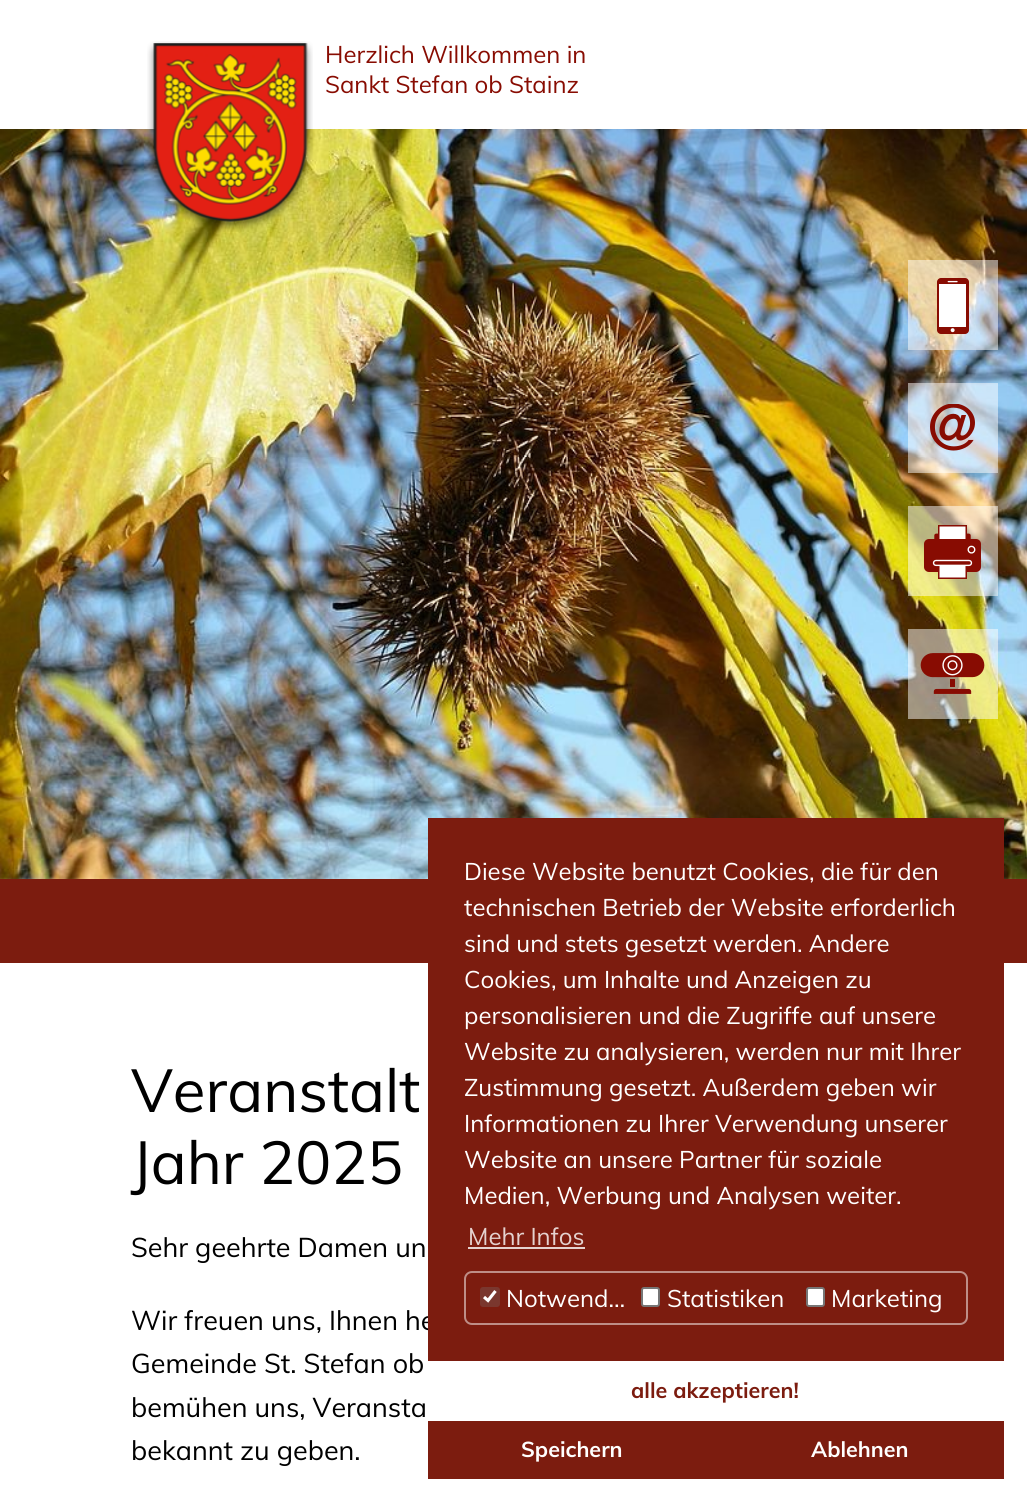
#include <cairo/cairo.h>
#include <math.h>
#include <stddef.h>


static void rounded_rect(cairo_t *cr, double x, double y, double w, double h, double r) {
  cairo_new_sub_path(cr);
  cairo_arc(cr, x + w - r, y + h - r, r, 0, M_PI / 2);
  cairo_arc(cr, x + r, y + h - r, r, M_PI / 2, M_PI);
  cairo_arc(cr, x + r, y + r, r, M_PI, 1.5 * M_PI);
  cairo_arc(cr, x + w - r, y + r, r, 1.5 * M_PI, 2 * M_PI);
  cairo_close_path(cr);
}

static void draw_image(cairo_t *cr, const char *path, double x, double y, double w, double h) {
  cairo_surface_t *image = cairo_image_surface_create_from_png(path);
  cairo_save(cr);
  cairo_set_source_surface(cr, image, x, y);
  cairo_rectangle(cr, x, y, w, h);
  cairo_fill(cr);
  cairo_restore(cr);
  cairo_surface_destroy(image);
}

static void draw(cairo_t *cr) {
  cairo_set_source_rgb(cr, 1, 1, 1);
  cairo_paint(cr);
  draw_image(cr, "images/3.png", 0, 877, 1, 2);
  draw_image(cr, "images/2.png", 0, 129, 1027, 750);
  draw_image(cr, "images/1.png", 147, 41, 166, 191);
  cairo_set_source_rgba(cr, 1, 1, 1, 0.5);
  cairo_rectangle(cr, 908, 260, 90, 90);
  cairo_fill(cr);
  draw_image(cr, "images/4.png", 937, 278, 32, 56);
  cairo_rectangle(cr, 908, 383, 90, 90);
  cairo_fill(cr);
  draw_image(cr, "images/5.png", 930, 404, 45, 47);
  cairo_rectangle(cr, 908, 506, 90, 90);
  cairo_fill(cr);
  draw_image(cr, "images/6.png", 924, 525, 57, 54);
  cairo_rectangle(cr, 908, 629, 90, 90);
  cairo_fill(cr);
  draw_image(cr, "images/7.png", 920, 653, 65, 41);
  cairo_set_source_rgb(cr, 124 / 255.0, 28 / 255.0, 15 / 255.0);
  cairo_rectangle(cr, 0, 879, 1027, 84);
  cairo_fill(cr);
  cairo_select_font_face(cr, "Muli", CAIRO_FONT_SLANT_NORMAL, CAIRO_FONT_WEIGHT_NORMAL);
  cairo_set_font_size(cr, 24);
  cairo_set_source_rgb(cr, 136 / 255.0, 12 / 255.0, 2 / 255.0);
  cairo_move_to(cr, 325, 63);
  cairo_show_text(cr, "Herzlich Willkommen in");
  cairo_move_to(cr, 325, 93);
  cairo_show_text(cr, "Sankt Stefan ob Stainz");
  cairo_set_font_size(cr, 60);
  cairo_set_source_rgb(cr, 0, 0, 0);
  cairo_move_to(cr, 131, 1112);
  cairo_show_text(cr, "Veranstalt");
  cairo_move_to(cr, 131, 1184);
  cairo_show_text(cr, "Jahr 2025");
  cairo_set_font_size(cr, 27);
  cairo_move_to(cr, 131, 1257);
  cairo_show_text(cr, "Sehr geehrte Damen un");
  cairo_move_to(cr, 131, 1330);
  cairo_show_text(cr, "Wir freuen uns, Ihnen he");
  cairo_move_to(cr, 131, 1373);
  cairo_show_text(cr, "Gemeinde St. Stefan ob");
  cairo_move_to(cr, 131, 1417);
  cairo_show_text(cr, "bemühen uns, Veransta");
  cairo_move_to(cr, 131, 1460);
  cairo_show_text(cr, "bekannt zu geben.");
  cairo_set_source_rgb(cr, 124 / 255.0, 28 / 255.0, 15 / 255.0);
  cairo_rectangle(cr, 428, 818, 576, 661);
  cairo_fill(cr);
  cairo_set_font_size(cr, 24);
  cairo_set_source_rgb(cr, 1, 1, 1);
  cairo_move_to(cr, 464, 880);
  cairo_show_text(cr, "Diese Website benutzt Cookies, die für den");
  cairo_move_to(cr, 464, 916);
  cairo_show_text(cr, "technischen Betrieb der Website erforderlich");
  cairo_move_to(cr, 464, 952);
  cairo_show_text(cr, "sind und stets gesetzt werden. Andere");
  cairo_move_to(cr, 464, 988);
  cairo_show_text(cr, "Cookies, um Inhalte und Anzeigen zu");
  cairo_move_to(cr, 464, 1024);
  cairo_show_text(cr, "personalisieren und die Zugriffe auf unsere");
  cairo_move_to(cr, 464, 1060);
  cairo_show_text(cr, "Website zu analysieren, werden nur mit Ihrer");
  cairo_move_to(cr, 464, 1096);
  cairo_show_text(cr, "Zustimmung gesetzt. Außerdem geben wir");
  cairo_move_to(cr, 464, 1132);
  cairo_show_text(cr, "Informationen zu Ihrer Verwendung unserer");
  cairo_move_to(cr, 464, 1168);
  cairo_show_text(cr, "Website an unsere Partner für soziale");
  cairo_move_to(cr, 464, 1204);
  cairo_show_text(cr, "Medien, Werbung und Analysen weiter.");
  cairo_set_source_rgb(cr, 229 / 255.0, 210 / 255.0, 207 / 255.0);
  cairo_move_to(cr, 468, 1245);
  cairo_show_text(cr, "Mehr Infos");
  cairo_rectangle(cr, 468, 1247, 117, 2);
  cairo_fill(cr);
  rounded_rect(cr, 465, 1272, 502, 52, 7);
  cairo_set_source_rgb(cr, 190 / 255.0, 142 / 255.0, 135 / 255.0);
  cairo_stroke(cr);
  cairo_set_source_rgb(cr, 122 / 255.0, 55 / 255.0, 46 / 255.0);
  rounded_rect(cr, 480, 1287, 20, 20, 3);
  cairo_fill(cr);
  cairo_new_path(cr);
  cairo_move_to(cr, 484, 1297);
  cairo_line_to(cr, 488, 1300.5);
  cairo_line_to(cr, 495.5, 1291);
  cairo_set_source_rgb(cr, 1, 1, 1);
  cairo_set_line_width(cr, 3.1);
  cairo_stroke(cr);
  cairo_move_to(cr, 506, 1307);
  cairo_show_text(cr, "Notwend…");
  rounded_rect(cr, 642, 1288, 17, 18, 2);
  cairo_fill_preserve(cr);
  cairo_set_source_rgb(cr, 118 / 255.0, 118 / 255.0, 118 / 255.0);
  cairo_set_line_width(cr, 2);
  cairo_stroke(cr);
  cairo_set_source_rgb(cr, 1, 1, 1);
  cairo_move_to(cr, 667, 1307);
  cairo_show_text(cr, "Statistiken");
  rounded_rect(cr, 807, 1288, 17, 18, 2);
  cairo_fill_preserve(cr);
  cairo_set_source_rgb(cr, 118 / 255.0, 118 / 255.0, 118 / 255.0);
  cairo_stroke(cr);
  cairo_set_source_rgb(cr, 1, 1, 1);
  cairo_move_to(cr, 831, 1307);
  cairo_show_text(cr, "Marketing");
  cairo_rectangle(cr, 428, 1361, 576, 60);
  cairo_fill(cr);
  cairo_select_font_face(cr, "Muli", CAIRO_FONT_SLANT_NORMAL, CAIRO_FONT_WEIGHT_BOLD);
  cairo_set_font_size(cr, 21.5);
  cairo_set_source_rgb(cr, 124 / 255.0, 28 / 255.0, 15 / 255.0);
  cairo_move_to(cr, 631, 1398);
  cairo_show_text(cr, "alle akzeptieren!");
  cairo_set_source_rgb(cr, 1, 1, 1);
  cairo_move_to(cr, 521, 1457);
  cairo_show_text(cr, "Speichern");
  cairo_move_to(cr, 811, 1457);
  cairo_show_text(cr, "Ablehnen");
}

int main(void) {
  cairo_surface_t *surface = cairo_image_surface_create(CAIRO_FORMAT_RGB24, 1027, 1502);
  cairo_t *cr = cairo_create(surface);
  cairo_font_options_t *options = cairo_font_options_create();
  cairo_font_options_set_hint_metrics(options, CAIRO_HINT_METRICS_OFF);
  cairo_font_options_set_hint_style(options, CAIRO_HINT_STYLE_NONE);
  cairo_set_font_options(cr, options);
  cairo_set_miter_limit(cr, 4);
  draw(cr);
  cairo_surface_write_to_png(surface, "out.png");
  cairo_font_options_destroy(options);
  cairo_destroy(cr);
  cairo_surface_destroy(surface);
  return 0;
}
